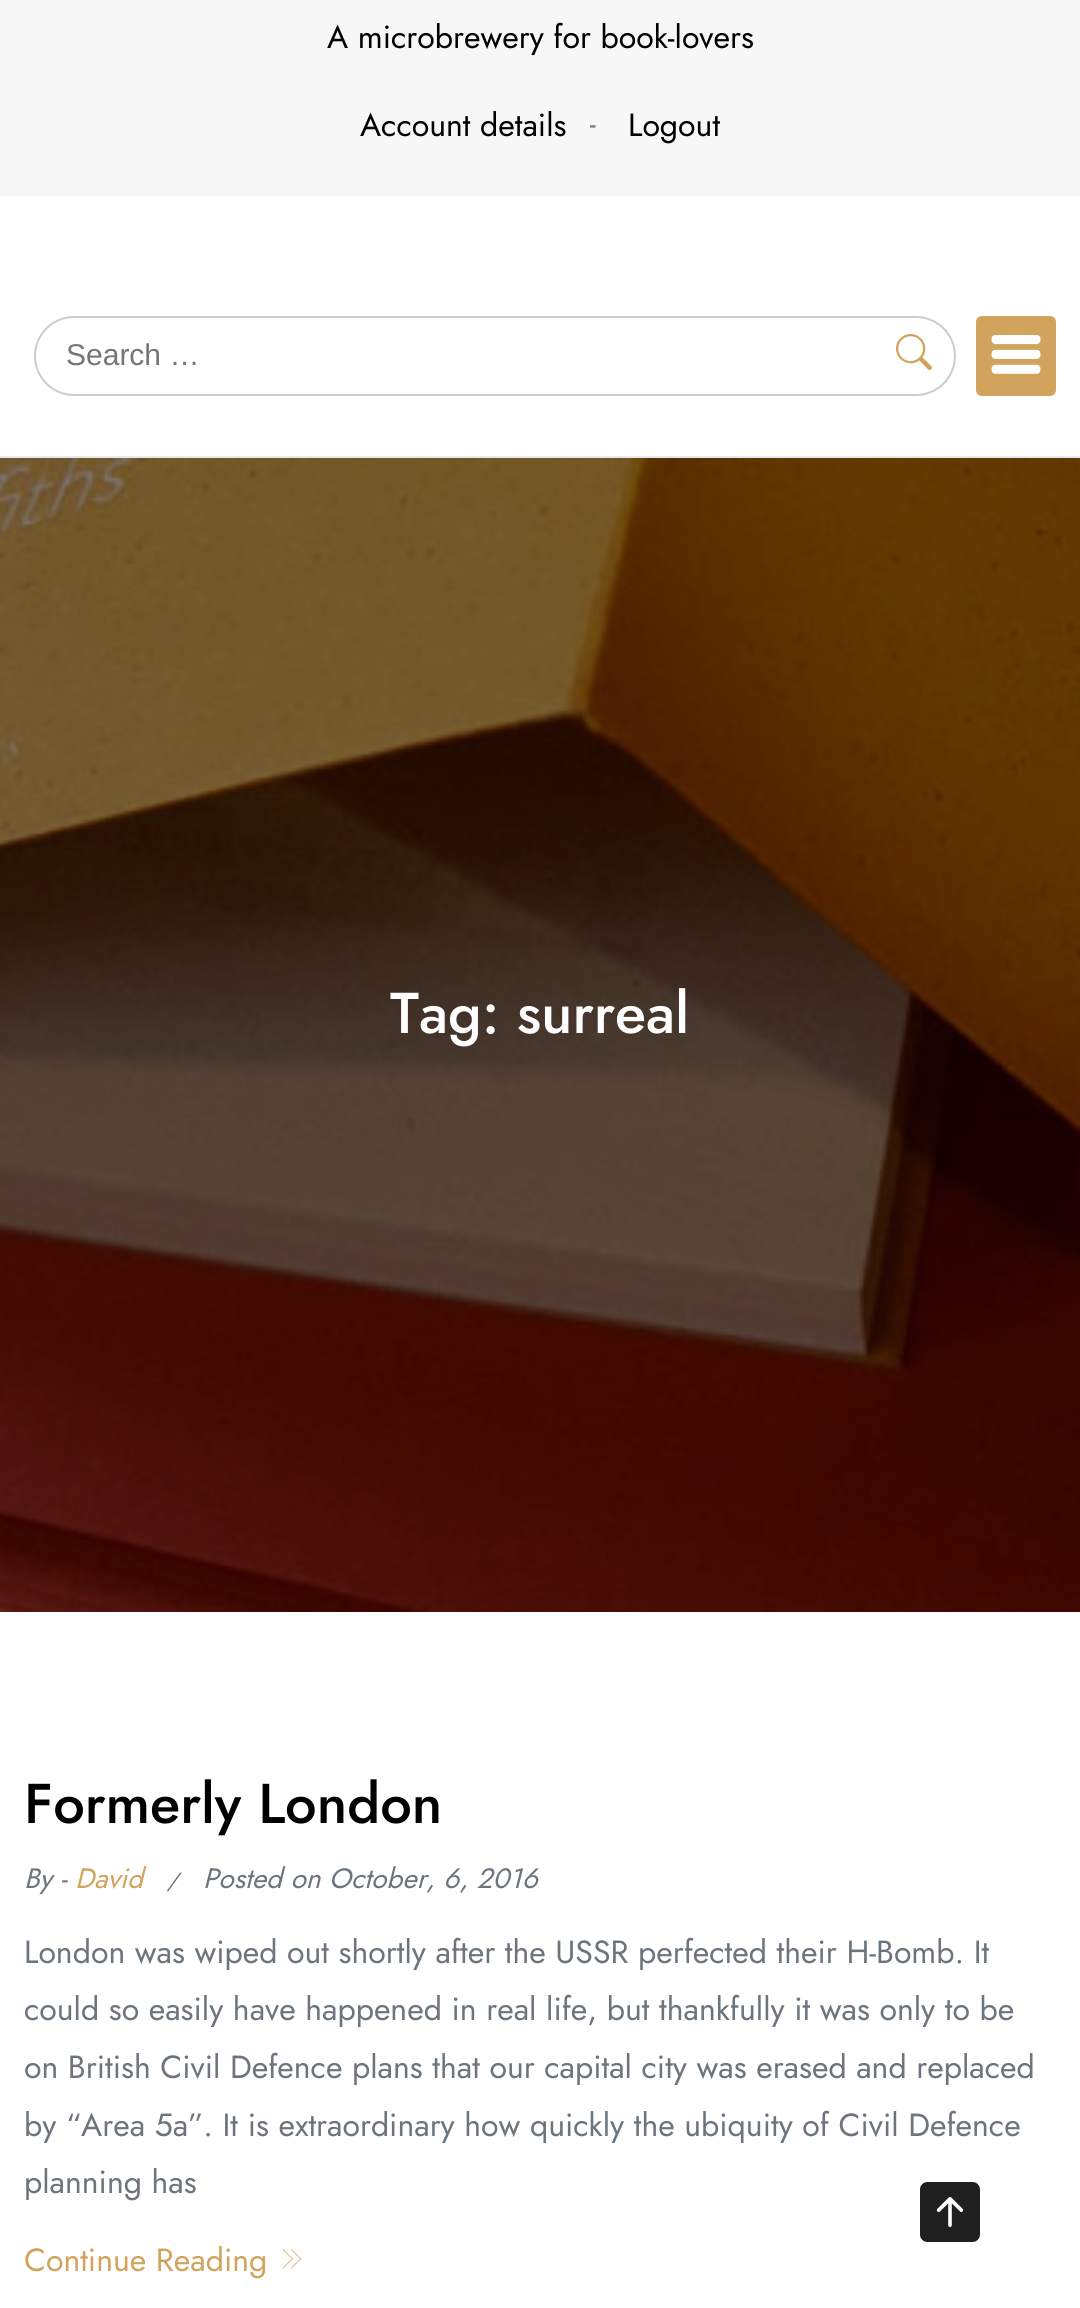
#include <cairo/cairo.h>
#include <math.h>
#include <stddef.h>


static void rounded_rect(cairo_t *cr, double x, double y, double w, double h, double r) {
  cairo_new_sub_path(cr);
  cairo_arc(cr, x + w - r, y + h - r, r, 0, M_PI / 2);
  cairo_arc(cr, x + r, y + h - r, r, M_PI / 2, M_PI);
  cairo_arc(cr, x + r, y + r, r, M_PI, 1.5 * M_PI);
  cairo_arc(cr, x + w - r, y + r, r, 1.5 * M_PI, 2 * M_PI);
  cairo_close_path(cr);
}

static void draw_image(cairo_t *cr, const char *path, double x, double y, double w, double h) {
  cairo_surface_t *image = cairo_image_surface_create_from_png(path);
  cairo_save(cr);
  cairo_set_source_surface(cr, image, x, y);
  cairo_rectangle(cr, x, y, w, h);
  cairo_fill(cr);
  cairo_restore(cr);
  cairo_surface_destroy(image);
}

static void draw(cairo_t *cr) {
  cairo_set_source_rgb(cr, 1, 1, 1);
  cairo_paint(cr);
  cairo_set_source_rgb(cr, 247 / 255.0, 247 / 255.0, 247 / 255.0);
  cairo_rectangle(cr, 0, 0, 1080, 196);
  cairo_fill(cr);
  cairo_set_source_rgb(cr, 230 / 255.0, 234 / 255.0, 234 / 255.0);
  cairo_rectangle(cr, 0, 456, 1080, 2);
  cairo_fill(cr);
  rounded_rect(cr, 35, 317, 920, 78, 39);
  cairo_set_source_rgb(cr, 204 / 255.0, 204 / 255.0, 204 / 255.0);
  cairo_stroke(cr);
  draw_image(cr, "images/1.png", 896, 334, 36, 36);
  cairo_set_source_rgb(cr, 210 / 255.0, 163 / 255.0, 92 / 255.0);
  rounded_rect(cr, 977, 317, 78, 78, 5);
  cairo_fill_preserve(cr);
  cairo_stroke(cr);
  draw_image(cr, "images/2.png", 991, 335, 50, 39);
  draw_image(cr, "images/3.png", 0, 458, 1080, 1154);
  draw_image(cr, "images/4.png", 282, 2249, 20, 20);
  draw_image(cr, "images/5.png", 920, 2182, 60, 60);
  cairo_select_font_face(cr, "Jost", CAIRO_FONT_SLANT_NORMAL, CAIRO_FONT_WEIGHT_NORMAL);
  cairo_set_font_size(cr, 32);
  cairo_set_source_rgb(cr, 0, 0, 0);
  cairo_move_to(cr, 327, 48);
  cairo_show_text(cr, "A microbrewery for book-lovers");
  cairo_move_to(cr, 360, 136);
  cairo_show_text(cr, "Account details");
  cairo_save(cr);
  cairo_rectangle(cr, 590, 96, 6, 36);
  cairo_clip(cr);
  cairo_set_source_rgb(cr, 124 / 255.0, 124 / 255.0, 124 / 255.0);
  cairo_move_to(cr, 589, 134);
  cairo_show_text(cr, "-");
  cairo_restore(cr);
  cairo_move_to(cr, 628, 136);
  cairo_show_text(cr, "Logout");
  cairo_select_font_face(cr, "Liberation Sans", CAIRO_FONT_SLANT_NORMAL, CAIRO_FONT_WEIGHT_NORMAL);
  cairo_set_font_size(cr, 30);
  cairo_set_source_rgb(cr, 117 / 255.0, 117 / 255.0, 117 / 255.0);
  cairo_move_to(cr, 66, 365);
  cairo_show_text(cr, "Search …");
  cairo_select_font_face(cr, "Jost Medium", CAIRO_FONT_SLANT_NORMAL, CAIRO_FONT_WEIGHT_NORMAL);
  cairo_set_font_size(cr, 57.5);
  cairo_set_source_rgb(cr, 1, 1, 1);
  cairo_move_to(cr, 390, 1033);
  cairo_show_text(cr, "Tag: surreal");
  cairo_set_font_size(cr, 56);
  cairo_set_source_rgb(cr, 0, 0, 0);
  cairo_move_to(cr, 24, 1823);
  cairo_show_text(cr, "Formerly London");
  cairo_select_font_face(cr, "Jost", CAIRO_FONT_SLANT_ITALIC, CAIRO_FONT_WEIGHT_NORMAL);
  cairo_set_font_size(cr, 28);
  cairo_set_source_rgb(cr, 108 / 255.0, 117 / 255.0, 125 / 255.0);
  cairo_move_to(cr, 24, 1888);
  cairo_show_text(cr, "By -");
  cairo_set_source_rgb(cr, 210 / 255.0, 163 / 255.0, 92 / 255.0);
  cairo_move_to(cr, 75, 1888);
  cairo_show_text(cr, "David");
  cairo_set_font_size(cr, 22);
  cairo_set_source_rgb(cr, 108 / 255.0, 117 / 255.0, 125 / 255.0);
  cairo_move_to(cr, 167, 1888);
  cairo_show_text(cr, "/");
  cairo_set_font_size(cr, 28);
  cairo_move_to(cr, 203, 1888);
  cairo_show_text(cr, "Posted on October, 6, 2016");
  cairo_select_font_face(cr, "Jost", CAIRO_FONT_SLANT_NORMAL, CAIRO_FONT_WEIGHT_NORMAL);
  cairo_set_font_size(cr, 32);
  cairo_move_to(cr, 24, 1963);
  cairo_show_text(cr, "London was wiped out shortly after the USSR perfected their H-Bomb. It");
  cairo_move_to(cr, 24, 2020);
  cairo_show_text(cr, "could so easily have happened in real life, but thankfully it was only to be");
  cairo_move_to(cr, 24, 2078);
  cairo_show_text(cr, "on British Civil Defence plans that our capital city was erased and replaced");
  cairo_move_to(cr, 24, 2136);
  cairo_show_text(cr, "by “Area 5a”. It is extraordinary how quickly the ubiquity of Civil Defence");
  cairo_move_to(cr, 24, 2193);
  cairo_show_text(cr, "planning has");
  cairo_set_source_rgb(cr, 210 / 255.0, 163 / 255.0, 92 / 255.0);
  cairo_move_to(cr, 24, 2271);
  cairo_show_text(cr, "Continue Reading");
}

int main(void) {
  cairo_surface_t *surface = cairo_image_surface_create(CAIRO_FORMAT_RGB24, 1080, 2308);
  cairo_t *cr = cairo_create(surface);
  cairo_font_options_t *options = cairo_font_options_create();
  cairo_font_options_set_hint_metrics(options, CAIRO_HINT_METRICS_OFF);
  cairo_font_options_set_hint_style(options, CAIRO_HINT_STYLE_NONE);
  cairo_set_font_options(cr, options);
  cairo_set_miter_limit(cr, 4);
  draw(cr);
  cairo_surface_write_to_png(surface, "out.png");
  cairo_font_options_destroy(options);
  cairo_destroy(cr);
  cairo_surface_destroy(surface);
  return 0;
}
